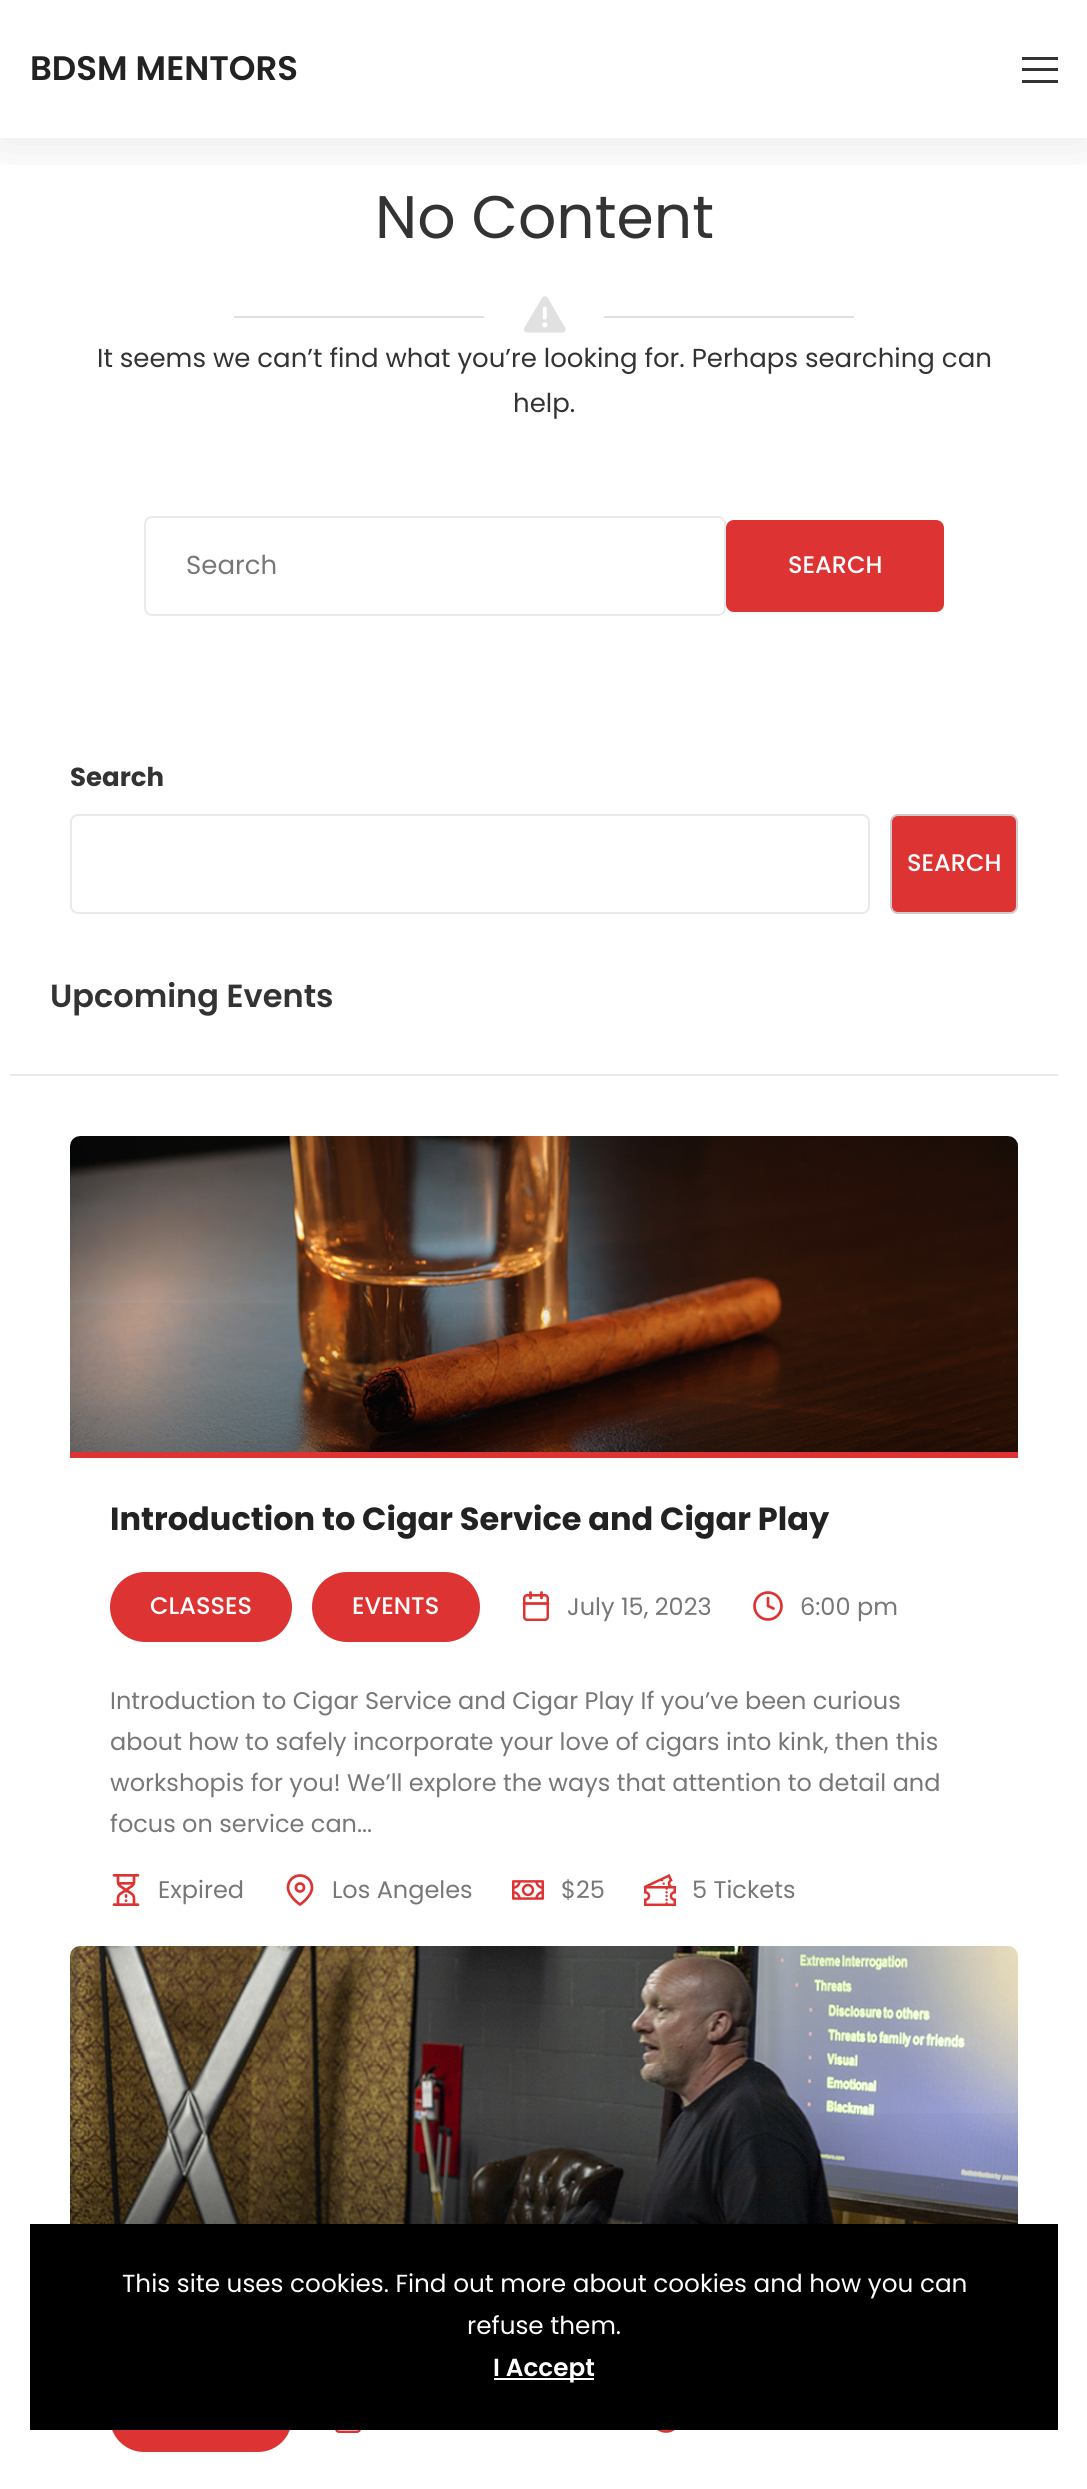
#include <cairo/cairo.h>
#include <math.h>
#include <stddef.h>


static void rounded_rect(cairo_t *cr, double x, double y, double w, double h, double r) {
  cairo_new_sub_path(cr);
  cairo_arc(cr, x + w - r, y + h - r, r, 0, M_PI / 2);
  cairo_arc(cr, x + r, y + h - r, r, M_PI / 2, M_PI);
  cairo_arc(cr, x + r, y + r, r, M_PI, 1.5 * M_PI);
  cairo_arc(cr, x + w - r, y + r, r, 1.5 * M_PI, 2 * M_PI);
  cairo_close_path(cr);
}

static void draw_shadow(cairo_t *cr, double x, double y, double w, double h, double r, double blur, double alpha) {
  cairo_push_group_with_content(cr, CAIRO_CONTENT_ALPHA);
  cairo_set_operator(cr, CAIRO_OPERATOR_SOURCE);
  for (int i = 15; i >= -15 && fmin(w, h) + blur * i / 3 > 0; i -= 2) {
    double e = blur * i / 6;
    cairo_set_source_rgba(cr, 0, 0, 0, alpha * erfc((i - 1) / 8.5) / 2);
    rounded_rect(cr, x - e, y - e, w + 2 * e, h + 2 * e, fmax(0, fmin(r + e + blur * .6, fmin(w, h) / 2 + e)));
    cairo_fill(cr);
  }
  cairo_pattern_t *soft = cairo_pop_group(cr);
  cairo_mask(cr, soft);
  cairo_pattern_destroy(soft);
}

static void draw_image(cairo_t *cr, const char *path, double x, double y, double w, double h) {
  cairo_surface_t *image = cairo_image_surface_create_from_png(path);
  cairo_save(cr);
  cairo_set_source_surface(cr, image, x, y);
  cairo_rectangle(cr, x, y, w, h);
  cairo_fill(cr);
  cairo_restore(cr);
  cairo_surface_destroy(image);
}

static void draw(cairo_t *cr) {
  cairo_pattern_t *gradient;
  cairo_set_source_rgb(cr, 1, 1, 1);
  cairo_paint(cr);
  cairo_save(cr);
  cairo_rectangle(cr, 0, 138, 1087, 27);
  cairo_clip(cr);
  cairo_set_source_rgb(cr, 0, 0, 0);
  draw_shadow(cr, 0, 2, 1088, 138, 0, 30, 0.1);
  cairo_restore(cr);
  cairo_set_source_rgb(cr, 51 / 255.0, 51 / 255.0, 51 / 255.0);
  cairo_rectangle(cr, 1022, 57, 36, 3);
  cairo_fill(cr);
  cairo_rectangle(cr, 1022, 68, 36, 3);
  cairo_fill(cr);
  cairo_rectangle(cr, 1022, 80, 36, 3);
  cairo_fill(cr);
  cairo_set_source_rgb(cr, 224 / 255.0, 224 / 255.0, 224 / 255.0);
  cairo_rectangle(cr, 234, 316, 250, 2);
  cairo_fill(cr);
  draw_image(cr, "images/1.png", 524, 296, 42, 37);
  cairo_rectangle(cr, 604, 316, 250, 2);
  cairo_fill(cr);
  rounded_rect(cr, 145, 517, 580, 98, 7);
  cairo_set_source_rgb(cr, 234 / 255.0, 234 / 255.0, 234 / 255.0);
  cairo_stroke(cr);
  cairo_set_source_rgb(cr, 221 / 255.0, 51 / 255.0, 51 / 255.0);
  rounded_rect(cr, 727, 521, 216, 90, 7);
  cairo_fill_preserve(cr);
  cairo_stroke(cr);
  rounded_rect(cr, 71, 815, 798, 98, 7);
  cairo_set_source_rgb(cr, 234 / 255.0, 234 / 255.0, 234 / 255.0);
  cairo_stroke(cr);
  cairo_set_source_rgb(cr, 221 / 255.0, 51 / 255.0, 51 / 255.0);
  rounded_rect(cr, 891, 815, 126, 98, 7);
  cairo_fill_preserve(cr);
  cairo_set_source_rgb(cr, 204 / 255.0, 204 / 255.0, 204 / 255.0);
  cairo_stroke(cr);
  cairo_set_source_rgb(cr, 234 / 255.0, 234 / 255.0, 234 / 255.0);
  cairo_rectangle(cr, 10, 1074, 1048, 2);
  cairo_fill(cr);
  draw_image(cr, "images/2.png", 70, 1136, 948, 316);
  gradient = cairo_pattern_create_linear(544, 1136, 544, 1452);
  cairo_pattern_add_color_stop_rgba(gradient, 0, 0, 0, 0, 0);
  cairo_pattern_add_color_stop_rgba(gradient, 0.5, 0, 0, 0, 0);
  cairo_pattern_add_color_stop_rgba(gradient, 1, 0, 0, 0, 0.4);
  cairo_set_source(cr, gradient);
  cairo_pattern_destroy(gradient);
  cairo_rectangle(cr, 70, 1303, 948, 149);
  cairo_fill(cr);
  cairo_set_source_rgb(cr, 221 / 255.0, 51 / 255.0, 51 / 255.0);
  cairo_rectangle(cr, 70, 1452, 948, 6);
  cairo_fill(cr);
  rounded_rect(cr, 110, 1572, 182, 70, 35);
  cairo_fill(cr);
  rounded_rect(cr, 312, 1572, 168, 70, 35);
  cairo_fill(cr);
  rounded_rect(cr, 524.25, 1595.25, 23.5, 24.5, 2.75);
  cairo_set_line_width(cr, 2.5);
  cairo_stroke(cr);
  cairo_new_path(cr);
  cairo_move_to(cr, 541.5, 1592.5);
  cairo_line_to(cr, 541.5, 1598);
  cairo_move_to(cr, 530.5, 1592.5);
  cairo_line_to(cr, 530.5, 1598);
  cairo_move_to(cr, 524, 1603.5);
  cairo_line_to(cr, 548, 1603.5);
  cairo_set_line_width(cr, 2.7);
  cairo_set_line_cap(cr, CAIRO_LINE_CAP_ROUND);
  cairo_set_line_join(cr, CAIRO_LINE_JOIN_ROUND);
  cairo_stroke(cr);
  cairo_arc(cr, 768, 1606, 13.5, 0, 2 * M_PI);
  cairo_set_line_cap(cr, CAIRO_LINE_CAP_BUTT);
  cairo_set_line_join(cr, CAIRO_LINE_JOIN_MITER);
  cairo_stroke(cr);
  cairo_new_path(cr);
  cairo_move_to(cr, 768, 1598);
  cairo_line_to(cr, 768, 1606);
  cairo_line_to(cr, 773.5, 1608.5);
  cairo_set_line_cap(cr, CAIRO_LINE_CAP_ROUND);
  cairo_set_line_join(cr, CAIRO_LINE_JOIN_ROUND);
  cairo_stroke(cr);
  draw_image(cr, "images/3.png", 112, 1874, 28, 32);
  cairo_new_path(cr);
  cairo_move_to(cr, 312, 1887.5);
  cairo_curve_to(cr, 312, 1896.5, 300, 1904.5, 300, 1904.5);
  cairo_curve_to(cr, 300, 1904.5, 288, 1896.5, 288, 1887.5);
  cairo_curve_to(cr, 288, 1880.5, 293.5, 1875.5, 300, 1875.5);
  cairo_curve_to(cr, 306.5, 1875.5, 312, 1880.5, 312, 1887.5);
  cairo_close_path(cr);
  cairo_stroke(cr);
  cairo_arc(cr, 300, 1887.5, 4, 0, 2 * M_PI);
  cairo_set_line_cap(cr, CAIRO_LINE_CAP_BUTT);
  cairo_set_line_join(cr, CAIRO_LINE_JOIN_MITER);
  cairo_stroke(cr);
  draw_image(cr, "images/4.png", 512, 1880, 32, 20);
  draw_image(cr, "images/5.png", 644, 1874, 32, 32);
  draw_image(cr, "images/6.png", 70, 1946, 948, 278);
  gradient = cairo_pattern_create_linear(544, 1946, 544, 2262);
  cairo_pattern_add_color_stop_rgba(gradient, 0, 0, 0, 0, 0);
  cairo_pattern_add_color_stop_rgba(gradient, 0.5, 0, 0, 0, 0);
  cairo_pattern_add_color_stop_rgba(gradient, 1, 0, 0, 0, 0.4);
  cairo_set_source(cr, gradient);
  cairo_pattern_destroy(gradient);
  cairo_rectangle(cr, 70, 2113, 948, 111);
  cairo_fill(cr);
  cairo_set_source_rgb(cr, 221 / 255.0, 51 / 255.0, 51 / 255.0);
  rounded_rect(cr, 110, 2384, 182, 68, 34);
  cairo_fill(cr);
  rounded_rect(cr, 336.25, 2407.25, 23.5, 24.5, 2.75);
  cairo_set_line_width(cr, 2.5);
  cairo_stroke(cr);
  cairo_arc(cr, 666, 2418, 13.5, 0, 2 * M_PI);
  cairo_set_line_width(cr, 2.7);
  cairo_stroke(cr);
  cairo_set_source_rgb(cr, 0, 0, 0);
  cairo_rectangle(cr, 30, 2224, 1028, 206);
  cairo_fill(cr);
  cairo_set_source_rgb(cr, 1, 1, 1);
  cairo_rectangle(cr, 494, 2378, 100, 2);
  cairo_fill(cr);
  cairo_select_font_face(cr, "Poppins SemiBold", CAIRO_FONT_SLANT_NORMAL, CAIRO_FONT_WEIGHT_NORMAL);
  cairo_set_font_size(cr, 34);
  cairo_set_source_rgb(cr, 34 / 255.0, 34 / 255.0, 34 / 255.0);
  cairo_move_to(cr, 30, 80);
  cairo_show_text(cr, "BDSM MENTORS");
  cairo_select_font_face(cr, "Poppins", CAIRO_FONT_SLANT_NORMAL, CAIRO_FONT_WEIGHT_NORMAL);
  cairo_set_font_size(cr, 60);
  cairo_set_source_rgb(cr, 51 / 255.0, 51 / 255.0, 51 / 255.0);
  cairo_move_to(cr, 375, 238);
  cairo_show_text(cr, "No Content");
  cairo_set_font_size(cr, 26);
  cairo_move_to(cr, 97, 367);
  cairo_show_text(cr, "It seems we can’t find what you’re looking for. Perhaps searching can");
  cairo_move_to(cr, 513, 412);
  cairo_show_text(cr, "help.");
  cairo_set_source_rgb(cr, 119 / 255.0, 119 / 255.0, 119 / 255.0);
  cairo_move_to(cr, 186, 574);
  cairo_show_text(cr, "Search");
  cairo_select_font_face(cr, "Poppins Medium", CAIRO_FONT_SLANT_NORMAL, CAIRO_FONT_WEIGHT_NORMAL);
  cairo_set_font_size(cr, 24);
  cairo_set_source_rgb(cr, 1, 1, 1);
  cairo_move_to(cr, 788, 573);
  cairo_show_text(cr, "SEARCH");
  cairo_select_font_face(cr, "Poppins", CAIRO_FONT_SLANT_NORMAL, CAIRO_FONT_WEIGHT_BOLD);
  cairo_set_font_size(cr, 26);
  cairo_set_source_rgb(cr, 51 / 255.0, 51 / 255.0, 51 / 255.0);
  cairo_move_to(cr, 70, 786);
  cairo_show_text(cr, "Search");
  cairo_select_font_face(cr, "Poppins Medium", CAIRO_FONT_SLANT_NORMAL, CAIRO_FONT_WEIGHT_NORMAL);
  cairo_set_font_size(cr, 24);
  cairo_set_source_rgb(cr, 1, 1, 1);
  cairo_move_to(cr, 907, 871);
  cairo_show_text(cr, "SEARCH");
  cairo_select_font_face(cr, "Poppins SemiBold", CAIRO_FONT_SLANT_NORMAL, CAIRO_FONT_WEIGHT_NORMAL);
  cairo_set_font_size(cr, 32);
  cairo_set_source_rgb(cr, 51 / 255.0, 51 / 255.0, 51 / 255.0);
  cairo_move_to(cr, 50, 1007);
  cairo_show_text(cr, "Upcoming Events");
  cairo_select_font_face(cr, "Poppins", CAIRO_FONT_SLANT_NORMAL, CAIRO_FONT_WEIGHT_BOLD);
  cairo_set_source_rgb(cr, 34 / 255.0, 34 / 255.0, 34 / 255.0);
  cairo_move_to(cr, 110, 1530);
  cairo_show_text(cr, "Introduction to Cigar Service and Cigar Play");
  cairo_select_font_face(cr, "Poppins Medium", CAIRO_FONT_SLANT_NORMAL, CAIRO_FONT_WEIGHT_NORMAL);
  cairo_set_font_size(cr, 24);
  cairo_set_source_rgb(cr, 1, 1, 1);
  cairo_move_to(cr, 150, 1614);
  cairo_show_text(cr, "CLASSES");
  cairo_move_to(cr, 352, 1614);
  cairo_show_text(cr, "EVENTS");
  cairo_select_font_face(cr, "Poppins", CAIRO_FONT_SLANT_NORMAL, CAIRO_FONT_WEIGHT_NORMAL);
  cairo_set_source_rgb(cr, 119 / 255.0, 119 / 255.0, 119 / 255.0);
  cairo_move_to(cr, 567, 1615);
  cairo_show_text(cr, "July 15, 2023");
  cairo_move_to(cr, 800, 1615);
  cairo_show_text(cr, "6:00 pm");
  cairo_move_to(cr, 110, 1709);
  cairo_show_text(cr, "Introduction to Cigar Service and Cigar Play If you’ve been curious");
  cairo_move_to(cr, 110, 1750);
  cairo_show_text(cr, "about how to safely incorporate your love of cigars into kink, then this");
  cairo_move_to(cr, 110, 1791);
  cairo_show_text(cr, "workshopis for you! We’ll explore the ways that attention to detail and");
  cairo_move_to(cr, 110, 1832);
  cairo_show_text(cr, "focus on service can...");
  cairo_move_to(cr, 158, 1898);
  cairo_show_text(cr, "Expired");
  cairo_move_to(cr, 332, 1898);
  cairo_show_text(cr, "Los Angeles");
  cairo_move_to(cr, 561, 1898);
  cairo_show_text(cr, "$25");
  cairo_move_to(cr, 692, 1898);
  cairo_show_text(cr, "5 Tickets");
  cairo_set_font_size(cr, 24.7);
  cairo_set_source_rgb(cr, 1, 1, 1);
  cairo_move_to(cr, 122, 2292);
  cairo_show_text(cr, "This site uses cookies. Find out more about cookies and how you can");
  cairo_move_to(cr, 467, 2334);
  cairo_show_text(cr, "refuse them.");
  cairo_select_font_face(cr, "Poppins SemiBold", CAIRO_FONT_SLANT_NORMAL, CAIRO_FONT_WEIGHT_NORMAL);
  cairo_move_to(cr, 493, 2376);
  cairo_show_text(cr, "I Accept");
}

int main(void) {
  cairo_surface_t *surface = cairo_image_surface_create(CAIRO_FORMAT_RGB24, 1087, 2489);
  cairo_t *cr = cairo_create(surface);
  cairo_font_options_t *options = cairo_font_options_create();
  cairo_font_options_set_hint_metrics(options, CAIRO_HINT_METRICS_OFF);
  cairo_font_options_set_hint_style(options, CAIRO_HINT_STYLE_NONE);
  cairo_set_font_options(cr, options);
  cairo_set_miter_limit(cr, 4);
  draw(cr);
  cairo_surface_write_to_png(surface, "out.png");
  cairo_font_options_destroy(options);
  cairo_destroy(cr);
  cairo_surface_destroy(surface);
  return 0;
}
